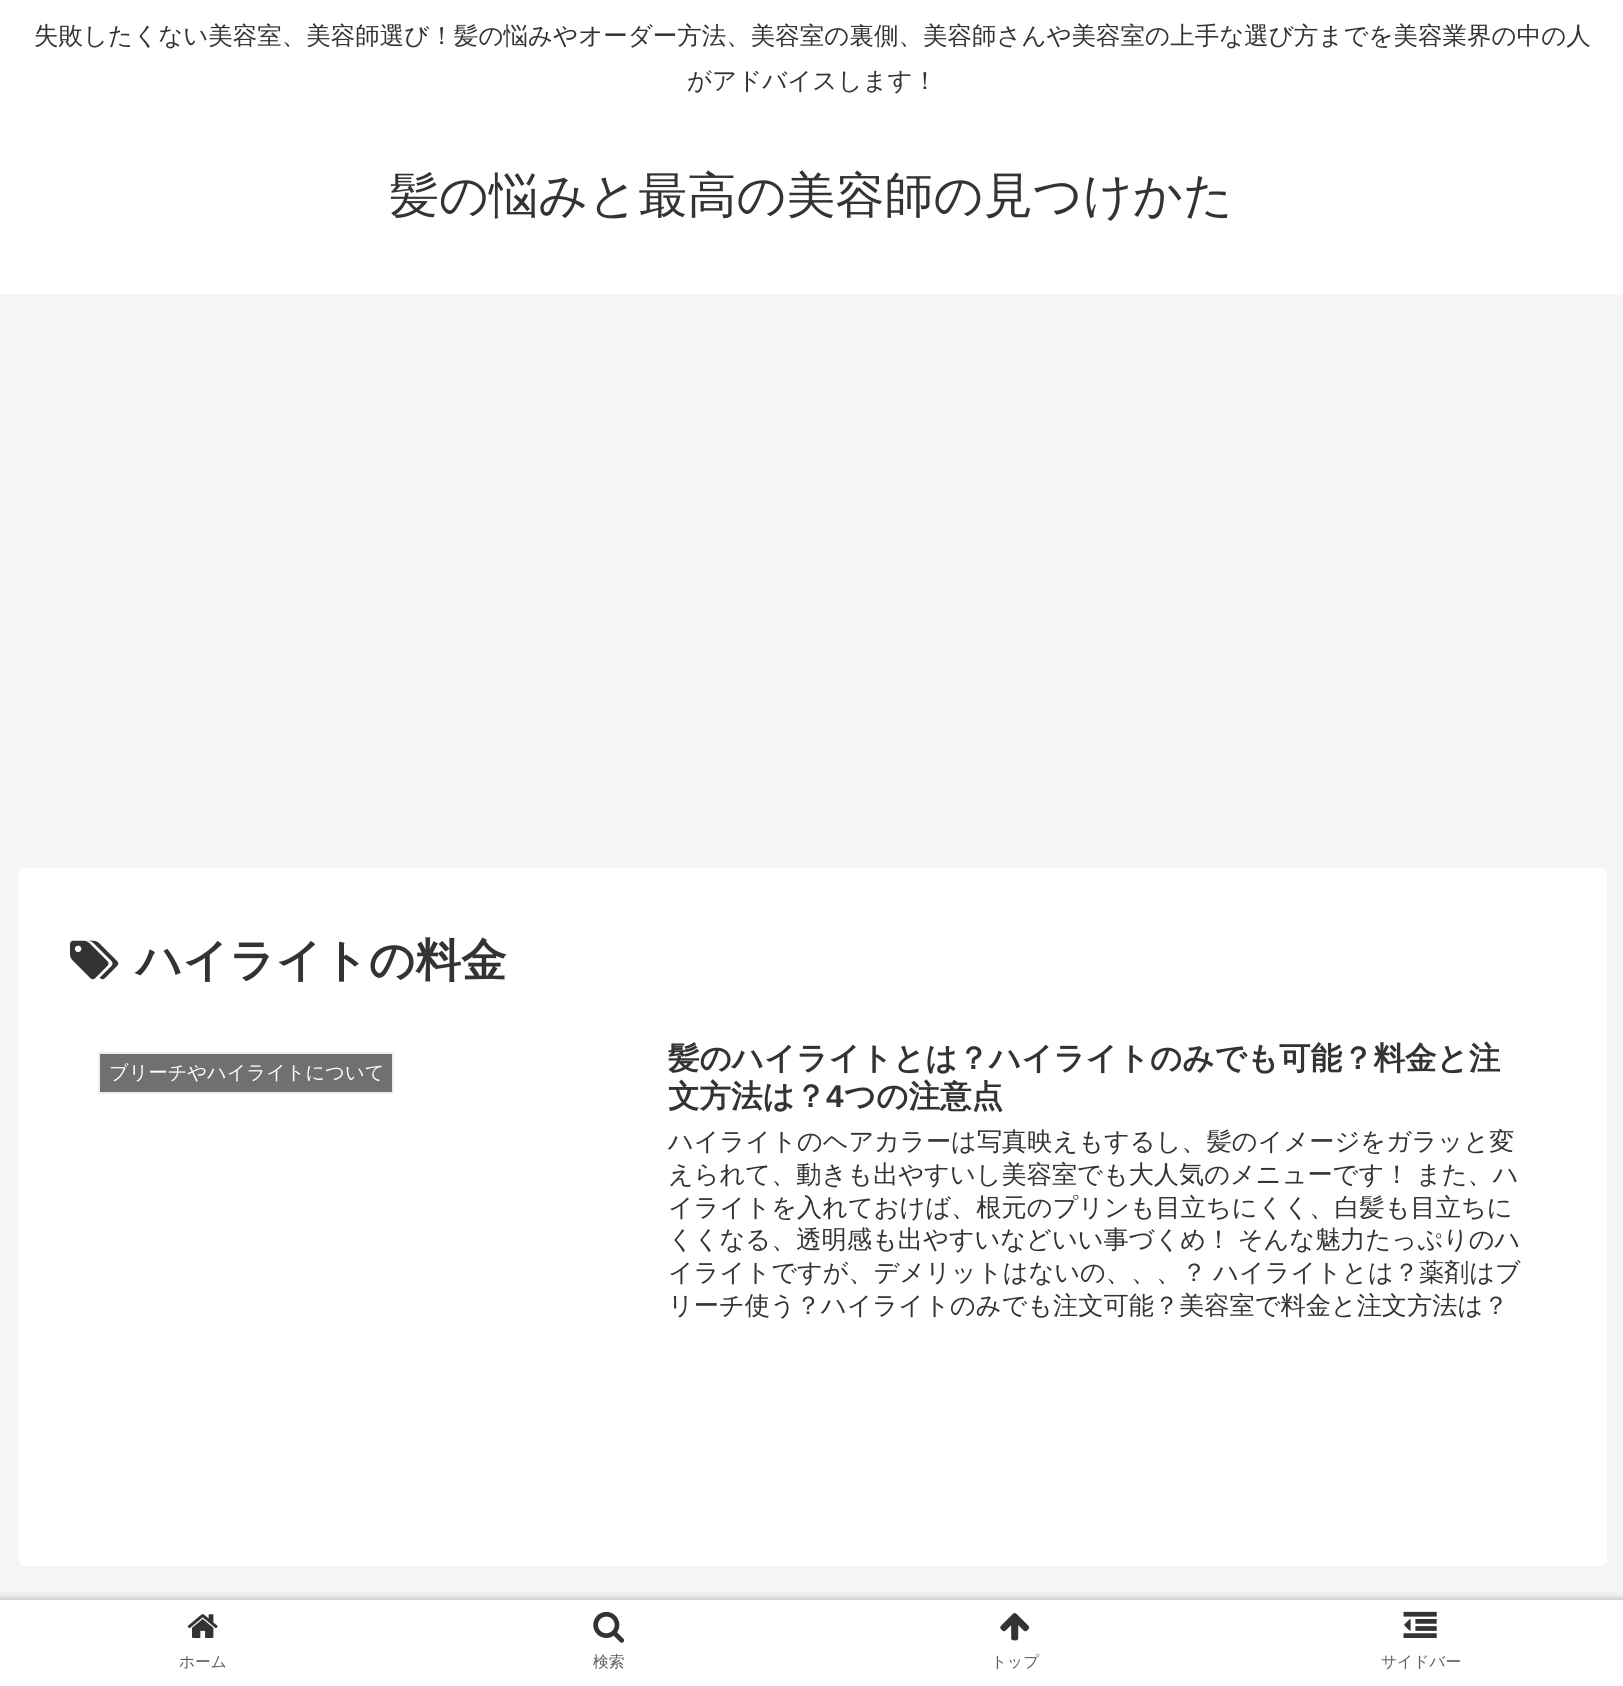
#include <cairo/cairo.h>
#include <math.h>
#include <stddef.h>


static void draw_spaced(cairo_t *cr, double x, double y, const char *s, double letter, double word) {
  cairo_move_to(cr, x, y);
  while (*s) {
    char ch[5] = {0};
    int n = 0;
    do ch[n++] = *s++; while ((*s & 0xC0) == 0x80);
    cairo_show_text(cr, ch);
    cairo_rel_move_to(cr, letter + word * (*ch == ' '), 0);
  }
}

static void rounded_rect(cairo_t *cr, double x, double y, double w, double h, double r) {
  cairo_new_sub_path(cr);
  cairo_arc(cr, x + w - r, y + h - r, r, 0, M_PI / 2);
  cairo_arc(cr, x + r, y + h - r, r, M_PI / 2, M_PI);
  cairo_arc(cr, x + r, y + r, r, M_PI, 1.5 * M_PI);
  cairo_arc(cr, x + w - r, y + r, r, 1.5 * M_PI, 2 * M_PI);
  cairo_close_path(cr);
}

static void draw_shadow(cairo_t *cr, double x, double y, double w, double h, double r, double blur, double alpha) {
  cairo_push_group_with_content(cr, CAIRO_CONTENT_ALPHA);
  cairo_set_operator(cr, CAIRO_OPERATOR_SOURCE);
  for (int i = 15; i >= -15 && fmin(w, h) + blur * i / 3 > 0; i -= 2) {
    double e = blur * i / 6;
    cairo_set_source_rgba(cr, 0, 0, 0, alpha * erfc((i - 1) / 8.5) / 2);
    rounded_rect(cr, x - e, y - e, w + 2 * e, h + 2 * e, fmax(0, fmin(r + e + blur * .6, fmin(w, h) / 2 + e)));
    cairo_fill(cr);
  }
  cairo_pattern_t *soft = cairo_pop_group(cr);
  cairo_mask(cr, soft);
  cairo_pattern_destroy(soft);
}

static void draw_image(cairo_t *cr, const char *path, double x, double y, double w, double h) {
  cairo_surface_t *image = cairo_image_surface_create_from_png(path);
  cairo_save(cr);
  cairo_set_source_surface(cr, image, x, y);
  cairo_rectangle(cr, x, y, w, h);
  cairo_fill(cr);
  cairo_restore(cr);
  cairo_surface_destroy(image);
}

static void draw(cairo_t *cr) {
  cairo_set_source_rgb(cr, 244 / 255.0, 245 / 255.0, 247 / 255.0);
  cairo_paint(cr);
  cairo_set_source_rgb(cr, 1, 1, 1);
  cairo_rectangle(cr, 0, 0, 1623, 294);
  cairo_fill(cr);
  rounded_rect(cr, 18, 868, 1589, 698, 7);
  cairo_fill(cr);
  draw_image(cr, "images/1.png", 70, 940, 49, 40);
  cairo_set_source_rgb(cr, 112 / 255.0, 112 / 255.0, 112 / 255.0);
  cairo_rectangle(cr, 99, 1053, 294, 40);
  cairo_fill_preserve(cr);
  cairo_set_source_rgb(cr, 238 / 255.0, 238 / 255.0, 238 / 255.0);
  cairo_stroke(cr);
  cairo_set_source_rgb(cr, 169 / 255.0, 169 / 255.0, 169 / 255.0);
  draw_shadow(cr, 0, 1600, 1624, 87, 0, 4.5, 1);
  cairo_set_source_rgb(cr, 1, 1, 1);
  cairo_rectangle(cr, 0, 1600, 1623, 86);
  cairo_fill(cr);
  draw_image(cr, "images/2.png", 187, 1614, 31, 24);
  draw_image(cr, "images/3.png", 593, 1611, 32, 32);
  draw_image(cr, "images/4.png", 1000, 1613, 30, 28);
  draw_image(cr, "images/5.png", 1403, 1611, 34, 27);
  cairo_select_font_face(cr, "WenQuanYi Zen Hei Medium", CAIRO_FONT_SLANT_NORMAL, CAIRO_FONT_WEIGHT_NORMAL);
  cairo_set_font_size(cr, 24.5);
  cairo_set_source_rgb(cr, 51 / 255.0, 51 / 255.0, 51 / 255.0);
  cairo_move_to(cr, 34, 44);
  cairo_show_text(cr, "失敗したくない美容室、美容師選び！髪の悩みやオーダー方法、美容室の裏側、美容師さんや美容室の上手な選び方までを美容業界の中の人");
  cairo_move_to(cr, 687, 89);
  cairo_show_text(cr, "がアドバイスします！");
  cairo_set_font_size(cr, 49);
  cairo_move_to(cr, 390, 212);
  cairo_show_text(cr, "髪の悩みと最高の美容師の見つけかた");
  cairo_select_font_face(cr, "WenQuanYi Zen Hei", CAIRO_FONT_SLANT_NORMAL, CAIRO_FONT_WEIGHT_BOLD);
  cairo_set_font_size(cr, 45.5);
  cairo_move_to(cr, 136, 976);
  cairo_show_text(cr, "ハイライトの料金");
  cairo_select_font_face(cr, "WenQuanYi Zen Hei Medium", CAIRO_FONT_SLANT_NORMAL, CAIRO_FONT_WEIGHT_NORMAL);
  cairo_set_font_size(cr, 19.25);
  cairo_set_source_rgb(cr, 1, 1, 1);
  cairo_move_to(cr, 109, 1079);
  cairo_show_text(cr, "ブリーチやハイライトについて");
  cairo_select_font_face(cr, "WenQuanYi Zen Hei", CAIRO_FONT_SLANT_NORMAL, CAIRO_FONT_WEIGHT_BOLD);
  cairo_set_font_size(cr, 31.5);
  cairo_set_source_rgb(cr, 51 / 255.0, 51 / 255.0, 51 / 255.0);
  cairo_move_to(cr, 668, 1069);
  cairo_show_text(cr, "髪のハイライトとは？ハイライトのみでも可能？料金と注");
  cairo_move_to(cr, 668, 1107);
  cairo_show_text(cr, "文方法は？");
  cairo_select_font_face(cr, "Liberation Sans", CAIRO_FONT_SLANT_NORMAL, CAIRO_FONT_WEIGHT_BOLD);
  cairo_move_to(cr, 826, 1107);
  cairo_show_text(cr, "4");
  cairo_select_font_face(cr, "WenQuanYi Zen Hei", CAIRO_FONT_SLANT_NORMAL, CAIRO_FONT_WEIGHT_BOLD);
  cairo_move_to(cr, 844, 1107);
  cairo_show_text(cr, "つの注意点");
  cairo_select_font_face(cr, "WenQuanYi Zen Hei Medium", CAIRO_FONT_SLANT_NORMAL, CAIRO_FONT_WEIGHT_NORMAL);
  cairo_set_font_size(cr, 25.2);
  cairo_move_to(cr, 668, 1150);
  cairo_show_text(cr, "ハイライトのヘアカラーは写真映えもするし、髪のイメージをガラッと変");
  draw_spaced(cr, 668, 1183, "えられて、動きも出やすいし美容室でも大人気のメニューです！ また、ハ", 0, -1);
  cairo_move_to(cr, 668, 1216);
  cairo_show_text(cr, "イライトを入れておけば、根元のプリンも目立ちにくく、白髪も目立ちに");
  draw_spaced(cr, 668, 1248, "くくなる、透明感も出やすいなどいい事づくめ！ そんな魅力たっぷりのハ", 0, -1);
  draw_spaced(cr, 668, 1281, "イライトですが、デメリットはないの、、、？ ハイライトとは？薬剤はブ", 0, -1);
  cairo_move_to(cr, 668, 1314);
  cairo_show_text(cr, "リーチ使う？ハイライトのみでも注文可能？美容室で料金と注文方法は？");
  cairo_set_font_size(cr, 15.75);
  cairo_set_source_rgb(cr, 92 / 255.0, 92 / 255.0, 92 / 255.0);
  cairo_move_to(cr, 179, 1667);
  cairo_show_text(cr, "ホーム");
  cairo_move_to(cr, 593, 1667);
  cairo_show_text(cr, "検索");
  cairo_move_to(cr, 991, 1667);
  cairo_show_text(cr, "トップ");
  cairo_move_to(cr, 1381, 1667);
  cairo_show_text(cr, "サイドバー");
}

int main(void) {
  cairo_surface_t *surface = cairo_image_surface_create(CAIRO_FORMAT_RGB24, 1623, 1686);
  cairo_t *cr = cairo_create(surface);
  cairo_font_options_t *options = cairo_font_options_create();
  cairo_font_options_set_hint_metrics(options, CAIRO_HINT_METRICS_OFF);
  cairo_font_options_set_hint_style(options, CAIRO_HINT_STYLE_NONE);
  cairo_set_font_options(cr, options);
  cairo_set_miter_limit(cr, 4);
  draw(cr);
  cairo_surface_write_to_png(surface, "out.png");
  cairo_font_options_destroy(options);
  cairo_destroy(cr);
  cairo_surface_destroy(surface);
  return 0;
}
